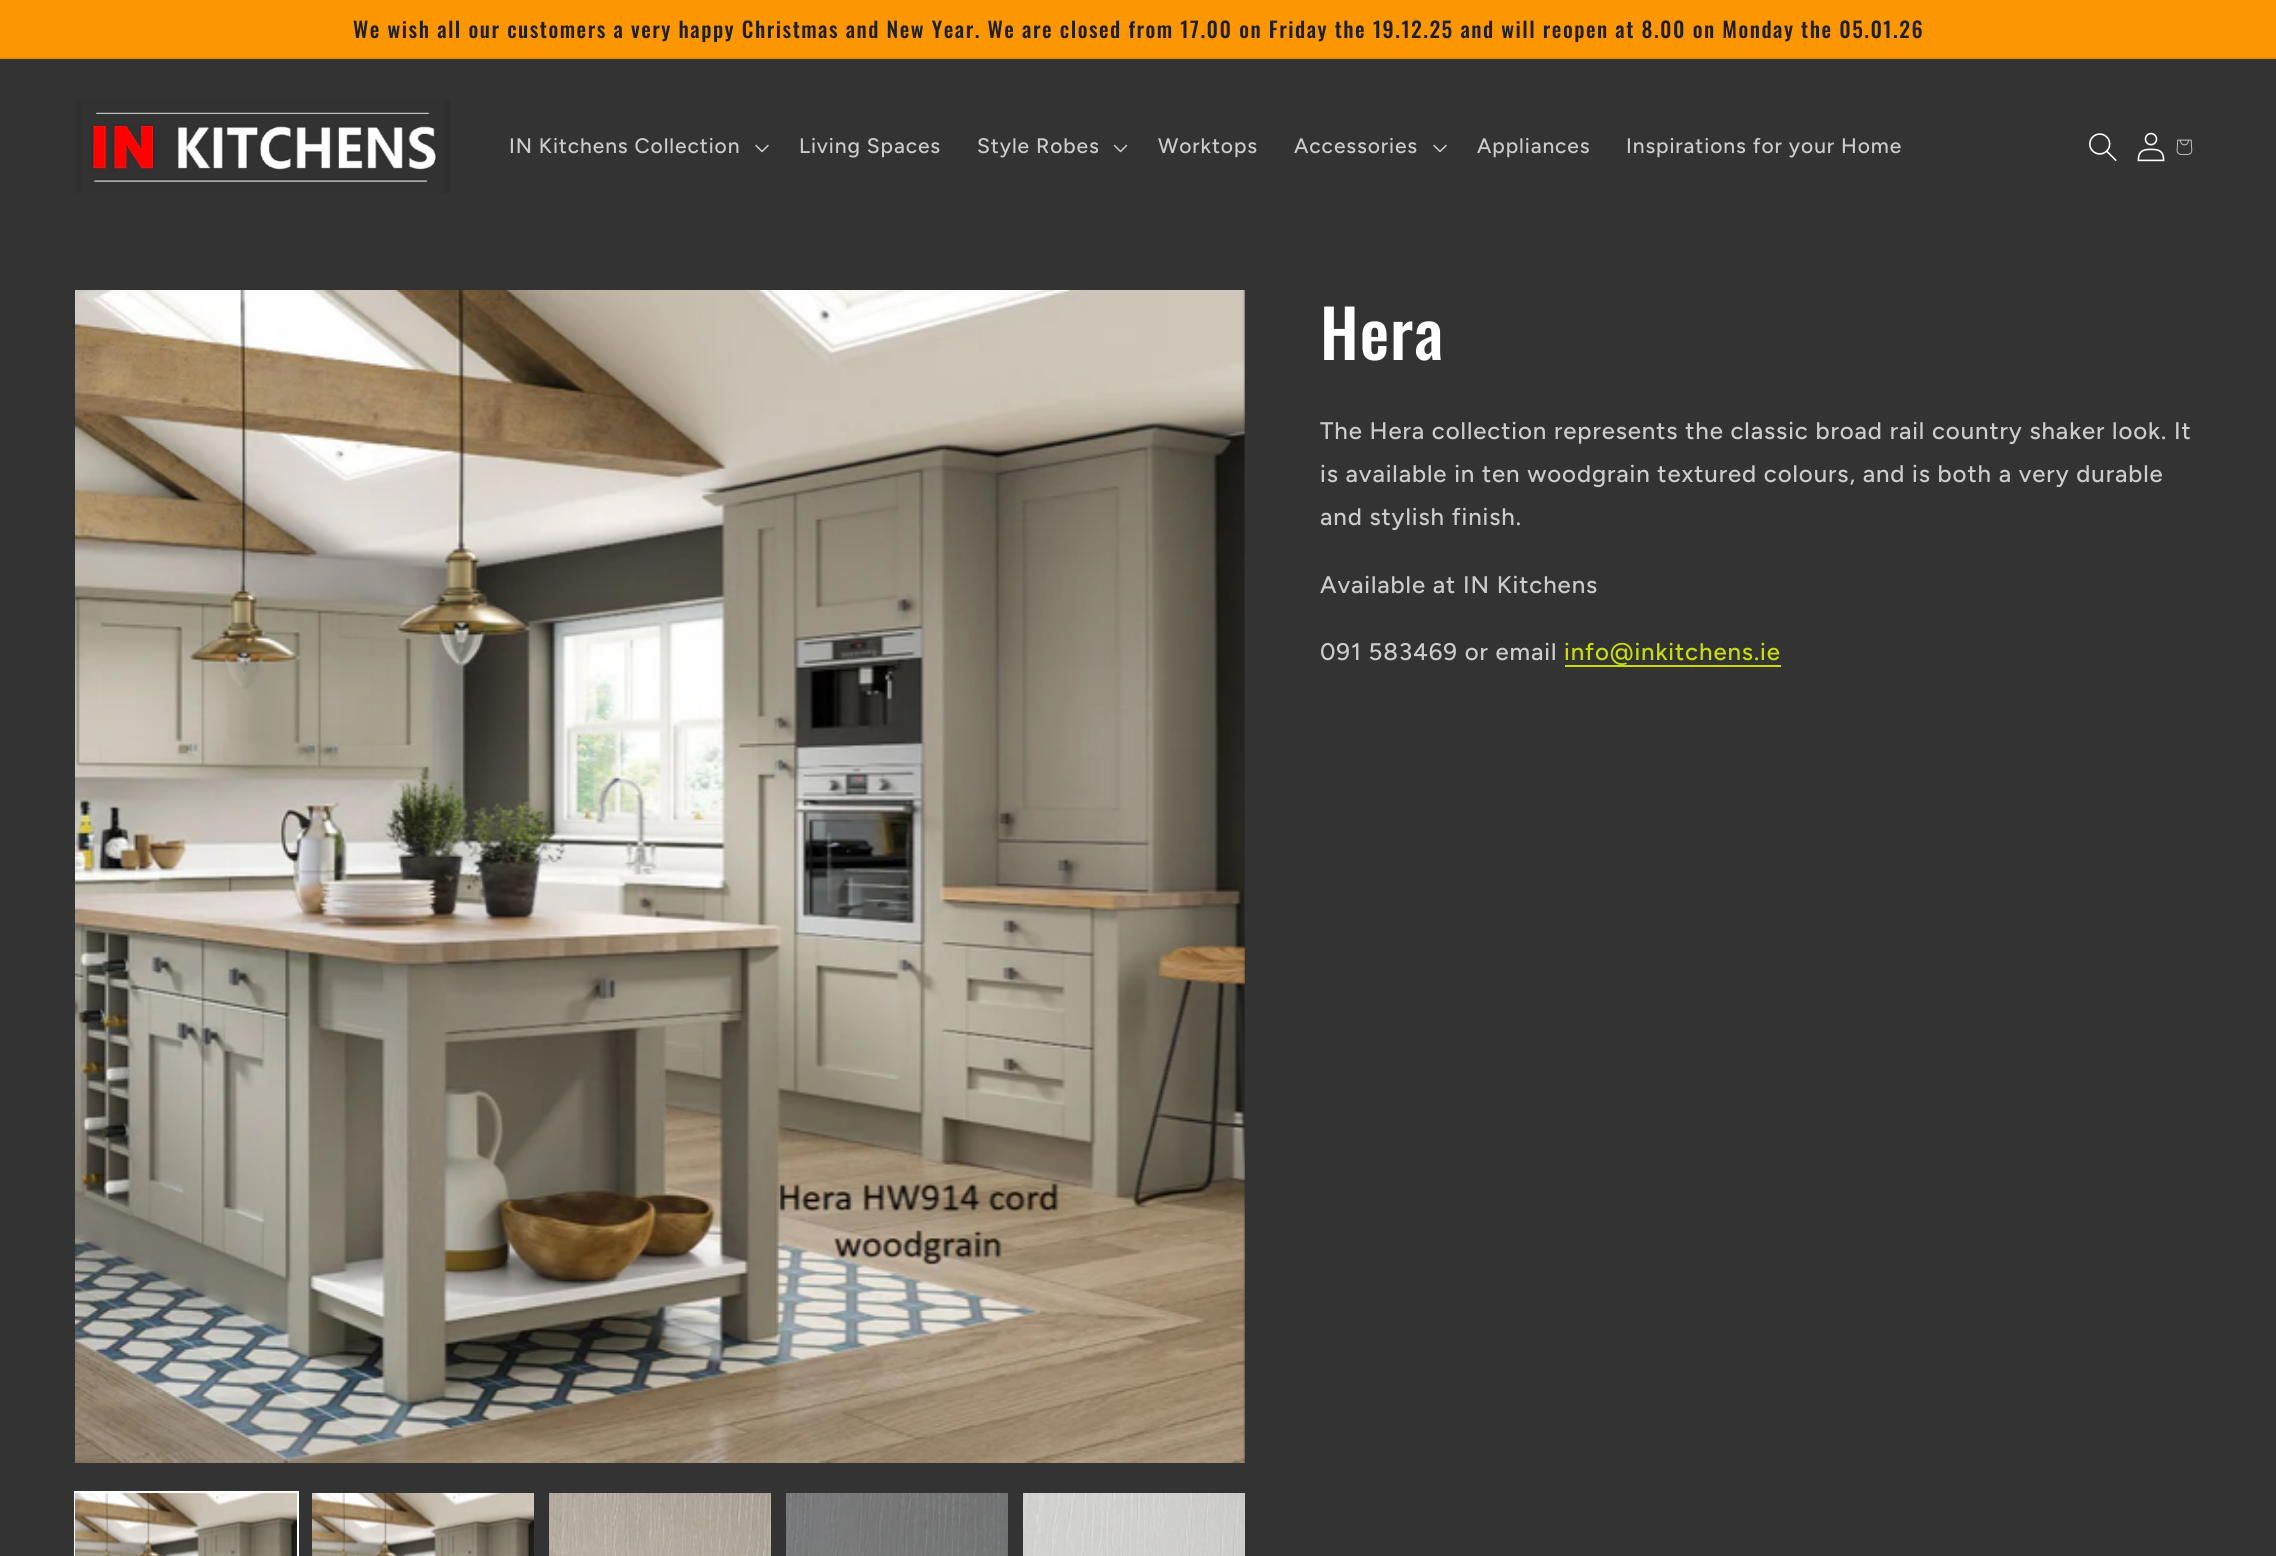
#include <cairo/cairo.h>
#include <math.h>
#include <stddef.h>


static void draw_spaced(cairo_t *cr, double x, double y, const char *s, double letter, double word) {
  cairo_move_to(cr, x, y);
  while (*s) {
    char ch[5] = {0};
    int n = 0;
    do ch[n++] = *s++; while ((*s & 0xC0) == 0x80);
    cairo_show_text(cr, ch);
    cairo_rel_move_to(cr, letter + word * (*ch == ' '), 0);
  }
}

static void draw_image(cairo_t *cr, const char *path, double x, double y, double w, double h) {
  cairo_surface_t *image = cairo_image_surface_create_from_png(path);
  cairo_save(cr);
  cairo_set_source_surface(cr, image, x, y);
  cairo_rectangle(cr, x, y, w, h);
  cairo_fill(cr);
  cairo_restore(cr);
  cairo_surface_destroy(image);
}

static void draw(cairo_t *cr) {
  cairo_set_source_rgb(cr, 52 / 255.0, 51 / 255.0, 51 / 255.0);
  cairo_paint(cr);
  cairo_set_source_rgb(cr, 252 / 255.0, 150 / 255.0, 2 / 255.0);
  cairo_rectangle(cr, 0, 0, 2276, 57);
  cairo_fill(cr);
  cairo_set_source_rgb(cr, 234 / 255.0, 140 / 255.0, 4 / 255.0);
  cairo_rectangle(cr, 0, 57, 2276, 2);
  cairo_fill(cr);
  draw_image(cr, "images/1.png", 75, 101, 375, 92);
  draw_image(cr, "images/2.png", 755, 144, 14, 9);
  draw_image(cr, "images/3.png", 1113, 144, 15, 9);
  draw_image(cr, "images/2.png", 1433, 144, 14, 9);
  draw_image(cr, "images/4.png", 2089, 133, 28, 28);
  draw_image(cr, "images/5.png", 2137, 132, 28, 30);
  draw_image(cr, "images/6.png", 2176, 139, 17, 16);
  draw_image(cr, "images/7.png", 75, 290, 1170, 1173);
  cairo_rectangle(cr, 75, 1492, 223, 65);
  cairo_set_source_rgb(cr, 1, 1, 1);
  cairo_stroke(cr);
  draw_image(cr, "images/8.png", 75, 1493, 222, 63);
  draw_image(cr, "images/9.png", 312, 1493, 222, 63);
  draw_image(cr, "images/10.png", 549, 1493, 222, 63);
  draw_image(cr, "images/11.png", 786, 1493, 222, 63);
  draw_image(cr, "images/12.png", 1023, 1493, 222, 63);
  cairo_set_source_rgb(cr, 201 / 255.0, 222 / 255.0, 9 / 255.0);
  cairo_rectangle(cr, 1565, 665, 216, 2);
  cairo_fill(cr);
  cairo_select_font_face(cr, "Oswald Medium", CAIRO_FONT_SLANT_NORMAL, CAIRO_FONT_WEIGHT_NORMAL);
  cairo_set_font_size(cr, 21.45);
  cairo_set_source_rgb(cr, 31 / 255.0, 31 / 255.0, 33 / 255.0);
  draw_spaced(cr, 353, 38, "We wish all our customers a very happy Christmas and New Year. We are closed from 17.00 on Friday the 19.12.25 and will reopen at 8.00 on Monday the 05.01.26", 1.5, 0);
  cairo_select_font_face(cr, "Figtree Medium", CAIRO_FONT_SLANT_NORMAL, CAIRO_FONT_WEIGHT_NORMAL);
  cairo_set_font_size(cr, 21);
  cairo_set_source_rgb(cr, 204 / 255.0, 204 / 255.0, 204 / 255.0);
  draw_spaced(cr, 509, 153, "IN Kitchens Collection", 0.9, 0);
  draw_spaced(cr, 799, 153, "Living Spaces", 0.9, 0);
  draw_spaced(cr, 977, 153, "Style Robes", 0.9, 0);
  draw_spaced(cr, 1158, 153, "Worktops", 0.9, 0);
  draw_spaced(cr, 1294, 153, "Accessories", 0.9, 0);
  draw_spaced(cr, 1477, 153, "Appliances", 0.9, 0);
  draw_spaced(cr, 1626, 153, "Inspirations for your Home", 0.9, 0);
  cairo_select_font_face(cr, "Oswald Medium", CAIRO_FONT_SLANT_NORMAL, CAIRO_FONT_WEIGHT_NORMAL);
  cairo_set_font_size(cr, 66);
  cairo_set_source_rgb(cr, 1, 1, 1);
  draw_spaced(cr, 1320, 360, "Hera", 1, 0);
  cairo_select_font_face(cr, "Figtree Medium", CAIRO_FONT_SLANT_NORMAL, CAIRO_FONT_WEIGHT_NORMAL);
  cairo_set_font_size(cr, 24);
  cairo_set_source_rgb(cr, 204 / 255.0, 204 / 255.0, 204 / 255.0);
  draw_spaced(cr, 1320, 439, "The Hera collection represents the classic broad rail country shaker look. It", 0.9, 0);
  draw_spaced(cr, 1320, 482, "is available in ten woodgrain textured colours, and is both a very durable", 0.9, 0);
  draw_spaced(cr, 1320, 525, "and stylish finish.", 0.9, 0);
  draw_spaced(cr, 1320, 593, "Available at IN Kitchens", 0.9, 0);
  draw_spaced(cr, 1320, 660, "091 583469 or email", 0.9, 0);
  cairo_set_source_rgb(cr, 201 / 255.0, 222 / 255.0, 9 / 255.0);
  draw_spaced(cr, 1564, 660, "info@inkitchens.ie", 0.9, 0);
}

int main(void) {
  cairo_surface_t *surface = cairo_image_surface_create(CAIRO_FORMAT_RGB24, 2276, 1556);
  cairo_t *cr = cairo_create(surface);
  cairo_font_options_t *options = cairo_font_options_create();
  cairo_font_options_set_hint_metrics(options, CAIRO_HINT_METRICS_OFF);
  cairo_font_options_set_hint_style(options, CAIRO_HINT_STYLE_NONE);
  cairo_set_font_options(cr, options);
  cairo_set_miter_limit(cr, 4);
  draw(cr);
  cairo_surface_write_to_png(surface, "out.png");
  cairo_font_options_destroy(options);
  cairo_destroy(cr);
  cairo_surface_destroy(surface);
  return 0;
}
